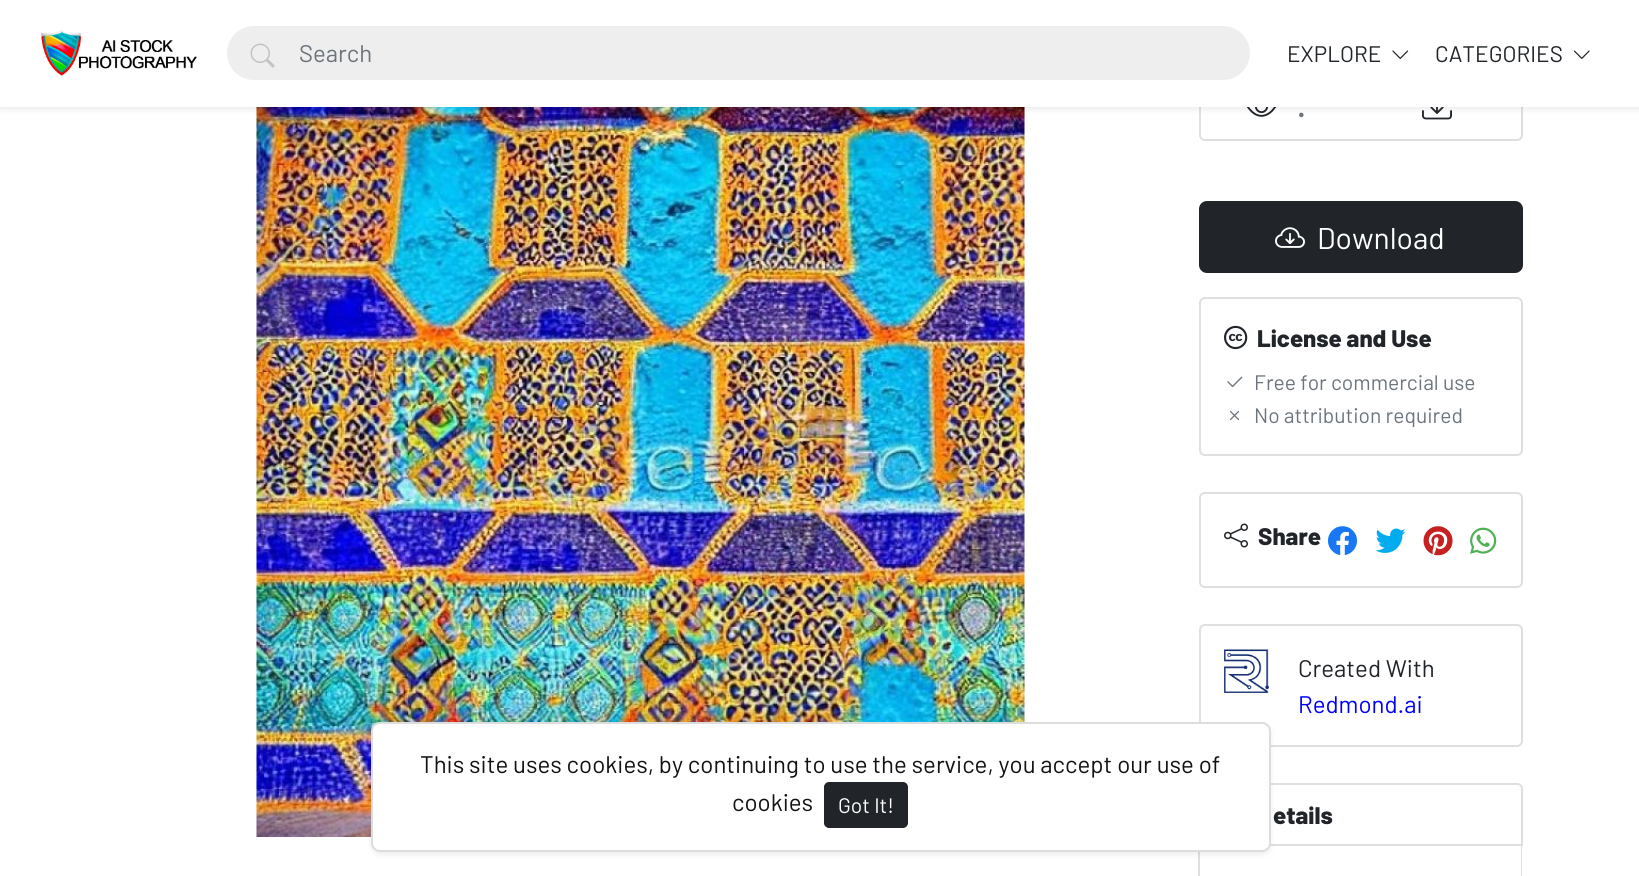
#include <cairo/cairo.h>
#include <math.h>
#include <stddef.h>


static void rounded_rect(cairo_t *cr, double x, double y, double w, double h, double r) {
  cairo_new_sub_path(cr);
  cairo_arc(cr, x + w - r, y + h - r, r, 0, M_PI / 2);
  cairo_arc(cr, x + r, y + h - r, r, M_PI / 2, M_PI);
  cairo_arc(cr, x + r, y + r, r, M_PI, 1.5 * M_PI);
  cairo_arc(cr, x + w - r, y + r, r, 1.5 * M_PI, 2 * M_PI);
  cairo_close_path(cr);
}

static void draw_shadow(cairo_t *cr, double x, double y, double w, double h, double r, double blur, double alpha) {
  cairo_push_group_with_content(cr, CAIRO_CONTENT_ALPHA);
  cairo_set_operator(cr, CAIRO_OPERATOR_SOURCE);
  for (int i = 15; i >= -15 && fmin(w, h) + blur * i / 3 > 0; i -= 2) {
    double e = blur * i / 6;
    cairo_set_source_rgba(cr, 0, 0, 0, alpha * erfc((i - 1) / 8.5) / 2);
    rounded_rect(cr, x - e, y - e, w + 2 * e, h + 2 * e, fmax(0, fmin(r + e + blur * .6, fmin(w, h) / 2 + e)));
    cairo_fill(cr);
  }
  cairo_pattern_t *soft = cairo_pop_group(cr);
  cairo_mask(cr, soft);
  cairo_pattern_destroy(soft);
}

static void draw_image(cairo_t *cr, const char *path, double x, double y, double w, double h) {
  cairo_surface_t *image = cairo_image_surface_create_from_png(path);
  cairo_save(cr);
  cairo_set_source_surface(cr, image, x, y);
  cairo_rectangle(cr, x, y, w, h);
  cairo_fill(cr);
  cairo_restore(cr);
  cairo_surface_destroy(image);
}

static void draw(cairo_t *cr) {
  cairo_set_source_rgb(cr, 1, 1, 1);
  cairo_paint(cr);
  draw_image(cr, "images/5.png", 256, 107, 769, 730);
  draw_image(cr, "images/6.png", 256, 107, 769, 730);
  rounded_rect(cr, 1200, 70, 322, 70, 5);
  cairo_set_source_rgb(cr, 223 / 255.0, 223 / 255.0, 223 / 255.0);
  cairo_stroke(cr);
  draw_image(cr, "images/7.png", 1246, 107, 31, 10);
  draw_image(cr, "images/8.png", 1422, 107, 30, 13);
  cairo_set_source_rgb(cr, 0, 0, 0);
  draw_shadow(cr, 0, 3, 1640, 107, 0, 3, 0.07);
  cairo_set_source_rgb(cr, 1, 1, 1);
  cairo_rectangle(cr, 0, 0, 1639, 107);
  cairo_fill(cr);
  draw_image(cr, "images/1.png", 41, 29, 156, 47);
  cairo_set_source_rgb(cr, 238 / 255.0, 238 / 255.0, 238 / 255.0);
  rounded_rect(cr, 227, 26, 1023, 54, 27);
  cairo_fill(cr);
  draw_image(cr, "images/2.png", 250, 43, 25, 25);
  draw_image(cr, "images/3.png", 1392, 50, 17, 9);
  draw_image(cr, "images/4.png", 1573, 50, 17, 9);
  cairo_set_source_rgb(cr, 33 / 255.0, 37 / 255.0, 41 / 255.0);
  rounded_rect(cr, 1200, 202, 322, 70, 7);
  cairo_fill_preserve(cr);
  cairo_stroke(cr);
  draw_image(cr, "images/9.png", 1275, 227, 30, 21);
  rounded_rect(cr, 1200, 298, 322, 157, 5);
  cairo_set_source_rgb(cr, 223 / 255.0, 223 / 255.0, 223 / 255.0);
  cairo_stroke(cr);
  draw_image(cr, "images/10.png", 1224, 325, 24, 25);
  draw_image(cr, "images/11.png", 1227, 376, 16, 12);
  draw_image(cr, "images/12.png", 1229, 410, 11, 11);
  rounded_rect(cr, 1200, 493, 322, 94, 5);
  cairo_stroke(cr);
  draw_image(cr, "images/13.png", 1224, 523, 24, 25);
  draw_image(cr, "images/14.png", 1328, 526, 29, 29);
  draw_image(cr, "images/15.png", 1375, 528, 31, 25);
  draw_image(cr, "images/16.png", 1423, 526, 30, 30);
  draw_image(cr, "images/17.png", 1470, 527, 27, 27);
  rounded_rect(cr, 1200, 625, 322, 121, 5);
  cairo_stroke(cr);
  draw_image(cr, "images/18.png", 1224, 649, 45, 44);
  cairo_new_path(cr);
  cairo_move_to(cr, 1205, 784);
  cairo_line_to(cr, 1517, 784);
  cairo_curve_to(cr, 1520, 784, 1522, 786, 1522, 789);
  cairo_line_to(cr, 1522, 845);
  cairo_line_to(cr, 1200, 845);
  cairo_line_to(cr, 1200, 789);
  cairo_curve_to(cr, 1200, 786, 1202, 784, 1205, 784);
  cairo_close_path(cr);
  cairo_stroke(cr);
  cairo_new_path(cr);
  cairo_move_to(cr, 1522, 846);
  cairo_line_to(cr, 1522, 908);
  cairo_line_to(cr, 1521, 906);
  cairo_line_to(cr, 1521, 846);
  cairo_close_path(cr);
  cairo_fill(cr);
  cairo_new_path(cr);
  cairo_move_to(cr, 1198, 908);
  cairo_line_to(cr, 1198, 846);
  cairo_line_to(cr, 1200, 846);
  cairo_line_to(cr, 1200, 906);
  cairo_close_path(cr);
  cairo_fill(cr);
  cairo_set_source_rgb(cr, 0, 0, 0);
  draw_shadow(cr, 371, 725, 900, 130, 9, 3, 0.07);
  cairo_set_source_rgb(cr, 1, 1, 1);
  rounded_rect(cr, 372, 723, 898, 128, 8);
  cairo_fill_preserve(cr);
  cairo_set_source_rgb(cr, 221 / 255.0, 221 / 255.0, 221 / 255.0);
  cairo_stroke(cr);
  cairo_set_source_rgb(cr, 33 / 255.0, 37 / 255.0, 41 / 255.0);
  rounded_rect(cr, 825, 783, 82, 44, 4);
  cairo_fill_preserve(cr);
  cairo_stroke(cr);
  cairo_select_font_face(cr, "Barlow", CAIRO_FONT_SLANT_NORMAL, CAIRO_FONT_WEIGHT_NORMAL);
  cairo_set_font_size(cr, 24);
  cairo_set_source_rgb(cr, 108 / 255.0, 117 / 255.0, 125 / 255.0);
  cairo_move_to(cr, 299, 62);
  cairo_show_text(cr, "Search");
  cairo_set_font_size(cr, 22.5);
  cairo_set_source_rgb(cr, 33 / 255.0, 37 / 255.0, 41 / 255.0);
  cairo_move_to(cr, 1287, 62);
  cairo_show_text(cr, "EXPLORE");
  cairo_move_to(cr, 1435, 62);
  cairo_show_text(cr, "CATEGORIES");
  cairo_select_font_face(cr, "Barlow ExtraBold", CAIRO_FONT_SLANT_NORMAL, CAIRO_FONT_WEIGHT_NORMAL);
  cairo_set_font_size(cr, 26);
  cairo_set_source_rgb(cr, 108 / 255.0, 117 / 255.0, 125 / 255.0);
  cairo_move_to(cr, 1298, 117);
  cairo_show_text(cr, ".");
  cairo_select_font_face(cr, "Barlow", CAIRO_FONT_SLANT_NORMAL, CAIRO_FONT_WEIGHT_NORMAL);
  cairo_set_font_size(cr, 30);
  cairo_set_source_rgb(cr, 1, 1, 1);
  cairo_move_to(cr, 1317, 249);
  cairo_show_text(cr, "Download");
  cairo_select_font_face(cr, "Barlow ExtraBold", CAIRO_FONT_SLANT_NORMAL, CAIRO_FONT_WEIGHT_NORMAL);
  cairo_set_font_size(cr, 24);
  cairo_set_source_rgb(cr, 33 / 255.0, 37 / 255.0, 41 / 255.0);
  cairo_move_to(cr, 1257, 347);
  cairo_show_text(cr, "License and Use");
  cairo_select_font_face(cr, "Barlow", CAIRO_FONT_SLANT_NORMAL, CAIRO_FONT_WEIGHT_NORMAL);
  cairo_set_font_size(cr, 21);
  cairo_set_source_rgb(cr, 108 / 255.0, 117 / 255.0, 125 / 255.0);
  cairo_move_to(cr, 1254, 390);
  cairo_show_text(cr, "Free for commercial use");
  cairo_move_to(cr, 1254, 423);
  cairo_show_text(cr, "No attribution required");
  cairo_select_font_face(cr, "Barlow ExtraBold", CAIRO_FONT_SLANT_NORMAL, CAIRO_FONT_WEIGHT_NORMAL);
  cairo_set_font_size(cr, 24);
  cairo_set_source_rgb(cr, 33 / 255.0, 37 / 255.0, 41 / 255.0);
  cairo_move_to(cr, 1258, 545);
  cairo_show_text(cr, "Share");
  cairo_select_font_face(cr, "Barlow", CAIRO_FONT_SLANT_NORMAL, CAIRO_FONT_WEIGHT_NORMAL);
  cairo_move_to(cr, 1298, 677);
  cairo_show_text(cr, "Created With");
  cairo_set_source_rgb(cr, 0, 0, 1);
  cairo_move_to(cr, 1298, 713);
  cairo_show_text(cr, "Redmond.ai");
  cairo_select_font_face(cr, "Barlow ExtraBold", CAIRO_FONT_SLANT_NORMAL, CAIRO_FONT_WEIGHT_NORMAL);
  cairo_set_source_rgb(cr, 33 / 255.0, 37 / 255.0, 41 / 255.0);
  cairo_move_to(cr, 1273, 824);
  cairo_show_text(cr, "etails");
  cairo_select_font_face(cr, "Barlow", CAIRO_FONT_SLANT_NORMAL, CAIRO_FONT_WEIGHT_NORMAL);
  cairo_set_source_rgb(cr, 18 / 255.0, 18 / 255.0, 18 / 255.0);
  cairo_move_to(cr, 420, 773);
  cairo_show_text(cr, "This site uses cookies, by continuing to use the service, you accept our use of");
  cairo_move_to(cr, 732, 811);
  cairo_show_text(cr, "cookies");
  cairo_set_font_size(cr, 21);
  cairo_set_source_rgb(cr, 1, 1, 1);
  cairo_move_to(cr, 838, 813);
  cairo_show_text(cr, "Got It!");
}

int main(void) {
  cairo_surface_t *surface = cairo_image_surface_create(CAIRO_FORMAT_RGB24, 1639, 876);
  cairo_t *cr = cairo_create(surface);
  cairo_font_options_t *options = cairo_font_options_create();
  cairo_font_options_set_hint_metrics(options, CAIRO_HINT_METRICS_OFF);
  cairo_font_options_set_hint_style(options, CAIRO_HINT_STYLE_NONE);
  cairo_set_font_options(cr, options);
  cairo_set_miter_limit(cr, 4);
  draw(cr);
  cairo_surface_write_to_png(surface, "out.png");
  cairo_font_options_destroy(options);
  cairo_destroy(cr);
  cairo_surface_destroy(surface);
  return 0;
}
